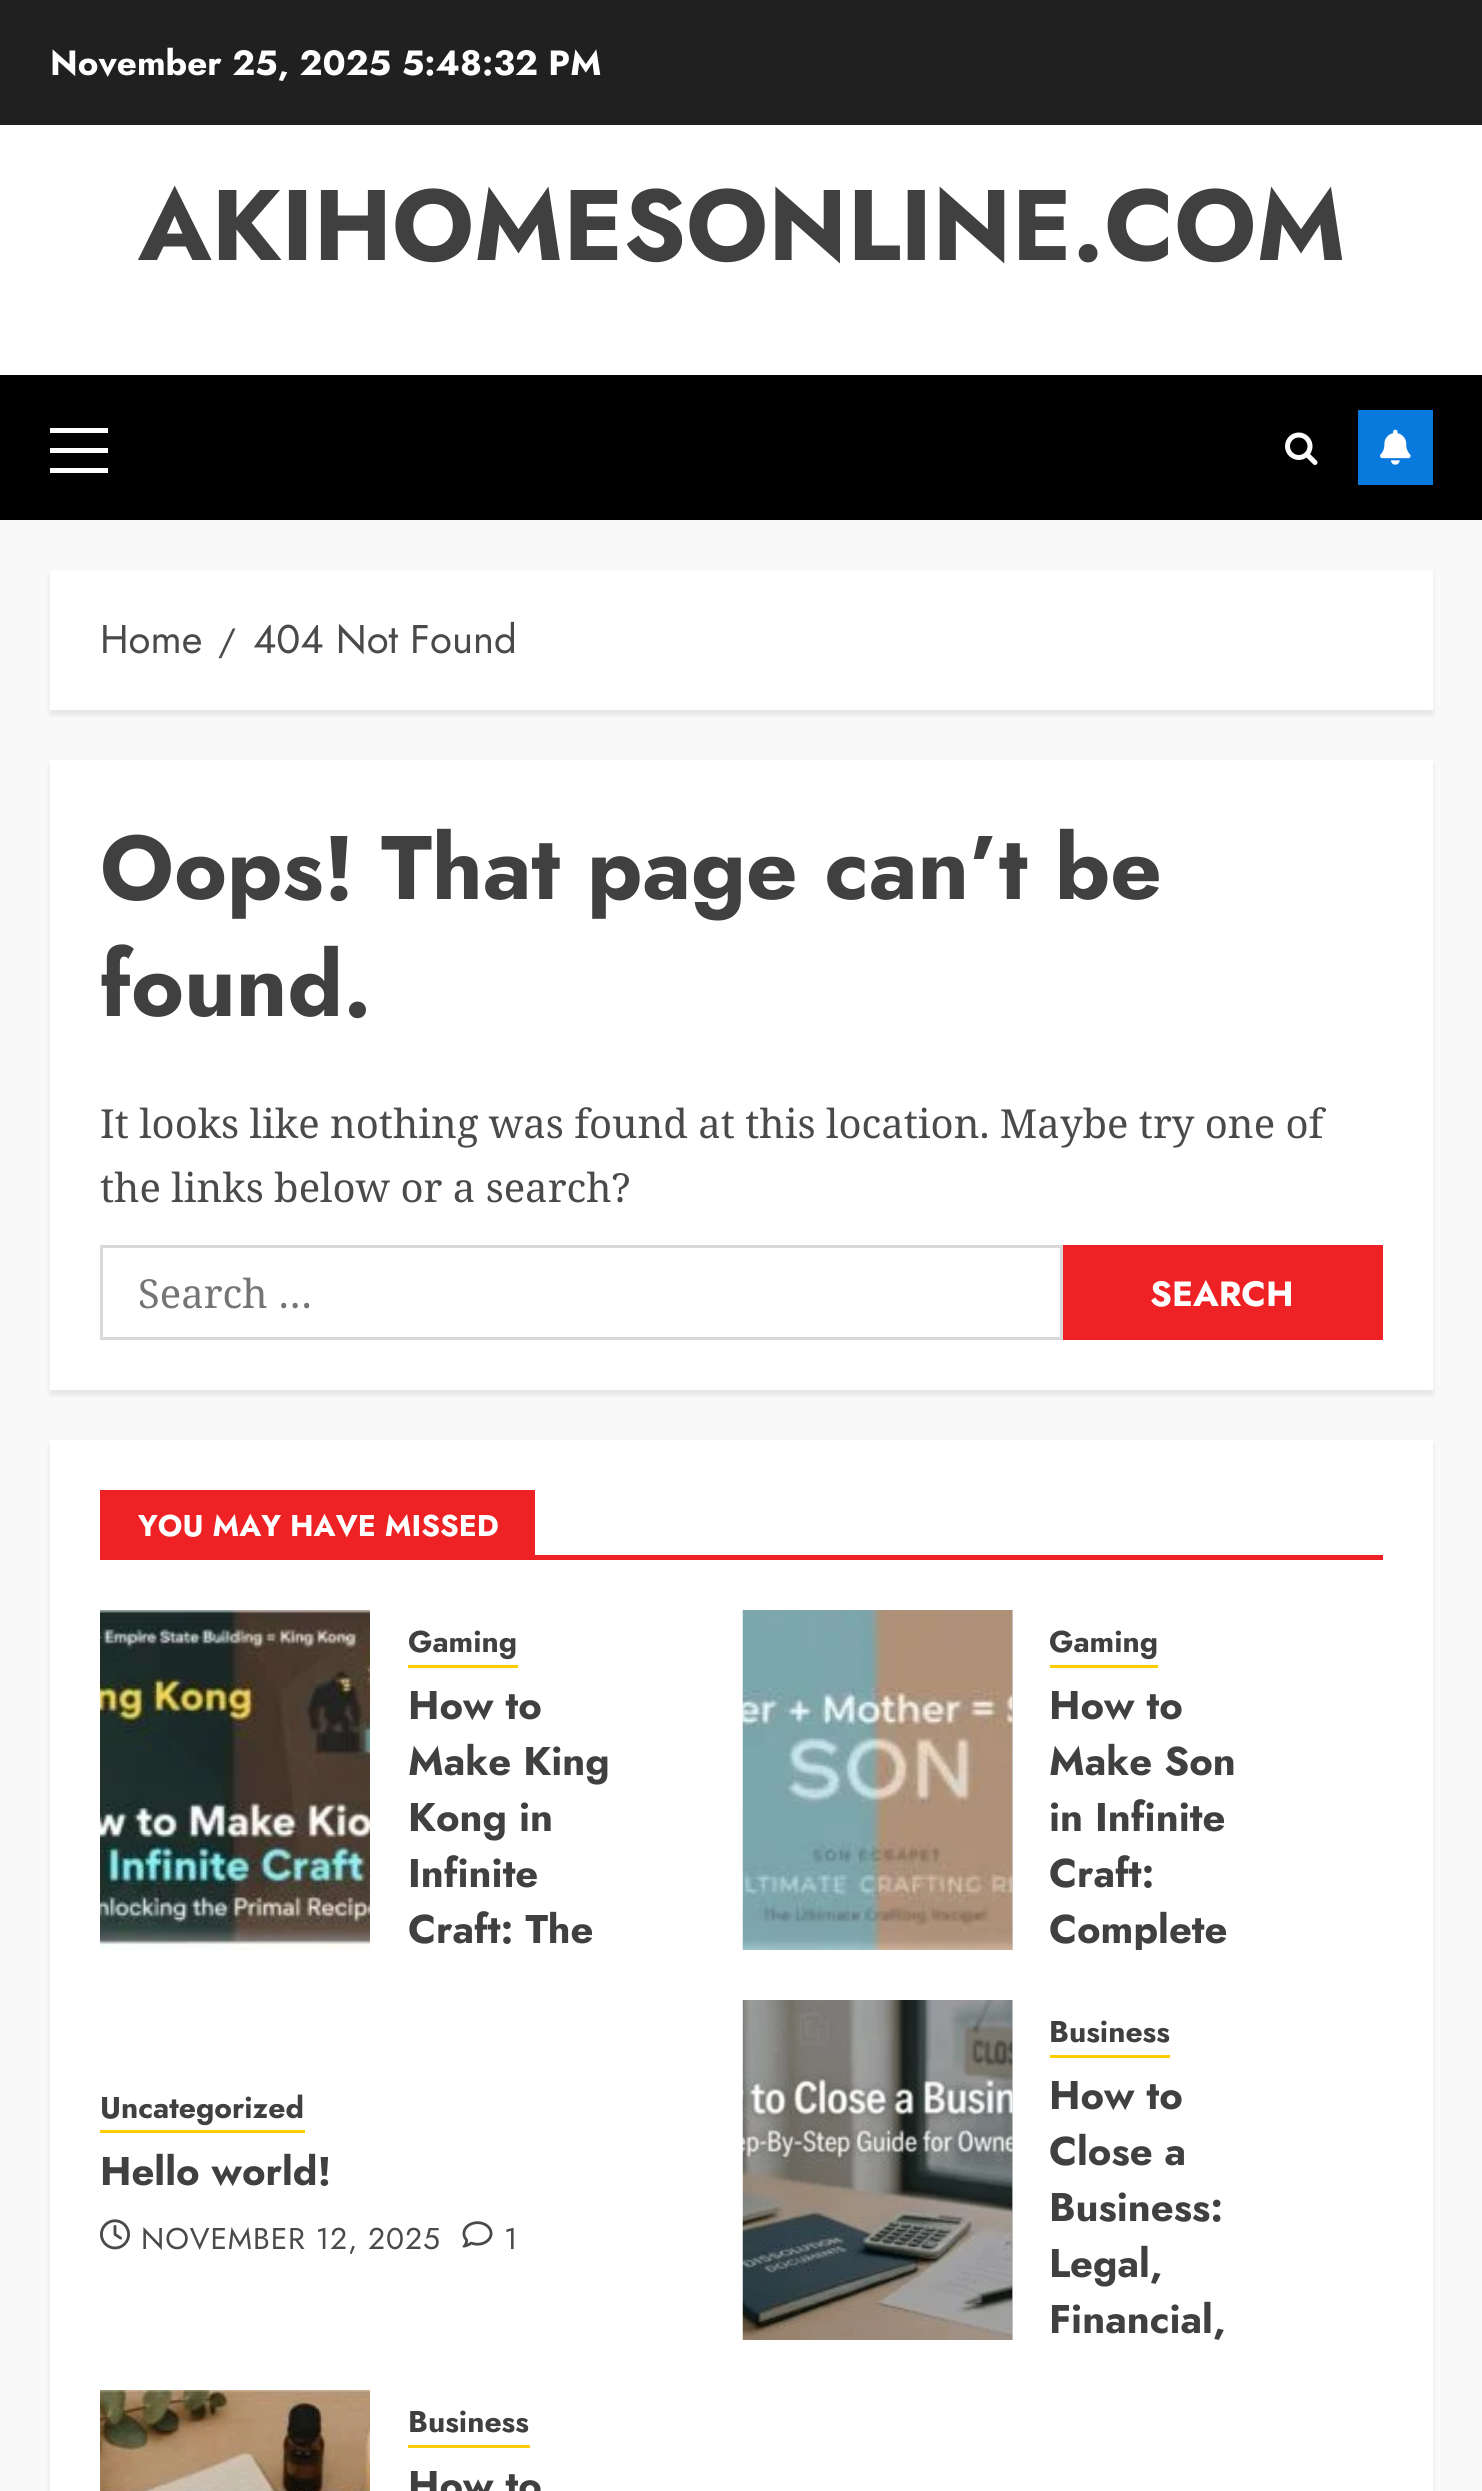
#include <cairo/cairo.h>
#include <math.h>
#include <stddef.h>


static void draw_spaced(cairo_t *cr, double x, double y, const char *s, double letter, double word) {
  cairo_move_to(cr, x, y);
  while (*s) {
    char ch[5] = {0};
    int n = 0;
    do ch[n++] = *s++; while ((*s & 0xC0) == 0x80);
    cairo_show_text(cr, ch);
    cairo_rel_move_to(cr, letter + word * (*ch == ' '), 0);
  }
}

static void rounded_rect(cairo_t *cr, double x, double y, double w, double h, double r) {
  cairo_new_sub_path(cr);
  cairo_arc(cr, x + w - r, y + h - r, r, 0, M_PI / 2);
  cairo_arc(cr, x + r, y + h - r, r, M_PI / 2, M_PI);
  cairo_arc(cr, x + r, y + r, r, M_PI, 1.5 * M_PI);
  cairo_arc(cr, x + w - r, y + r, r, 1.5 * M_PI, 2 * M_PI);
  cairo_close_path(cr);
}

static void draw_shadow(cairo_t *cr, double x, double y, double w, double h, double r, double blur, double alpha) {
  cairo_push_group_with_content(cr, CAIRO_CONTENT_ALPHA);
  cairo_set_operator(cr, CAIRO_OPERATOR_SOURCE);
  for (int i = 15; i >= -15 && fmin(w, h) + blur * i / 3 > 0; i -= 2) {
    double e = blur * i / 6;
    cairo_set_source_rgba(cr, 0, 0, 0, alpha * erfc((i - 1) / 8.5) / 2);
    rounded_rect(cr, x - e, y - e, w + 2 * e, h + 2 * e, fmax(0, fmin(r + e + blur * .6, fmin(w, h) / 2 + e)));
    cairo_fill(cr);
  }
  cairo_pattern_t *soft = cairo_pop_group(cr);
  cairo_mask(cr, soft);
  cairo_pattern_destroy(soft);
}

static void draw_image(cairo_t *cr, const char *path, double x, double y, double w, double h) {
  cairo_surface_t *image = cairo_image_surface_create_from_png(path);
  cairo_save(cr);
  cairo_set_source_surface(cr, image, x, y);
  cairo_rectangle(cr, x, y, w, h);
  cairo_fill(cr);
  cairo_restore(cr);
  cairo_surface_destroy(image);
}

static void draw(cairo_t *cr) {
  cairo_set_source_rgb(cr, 249 / 255.0, 249 / 255.0, 249 / 255.0);
  cairo_paint(cr);
  cairo_set_source_rgb(cr, 32 / 255.0, 32 / 255.0, 32 / 255.0);
  cairo_rectangle(cr, 0, 0, 1482, 125);
  cairo_fill(cr);
  cairo_set_source_rgb(cr, 1, 1, 1);
  cairo_rectangle(cr, 0, 125, 1482, 250);
  cairo_fill(cr);
  cairo_set_source_rgb(cr, 0, 0, 0);
  cairo_rectangle(cr, 0, 375, 1482, 145);
  cairo_fill(cr);
  cairo_set_source_rgb(cr, 1, 1, 1);
  cairo_rectangle(cr, 50, 448, 58, 5);
  cairo_fill(cr);
  cairo_rectangle(cr, 50, 428, 58, 5);
  cairo_fill(cr);
  cairo_rectangle(cr, 50, 468, 58, 5);
  cairo_fill(cr);
  draw_image(cr, "images/1.png", 1285, 432, 33, 33);
  cairo_set_source_rgb(cr, 8 / 255.0, 122 / 255.0, 221 / 255.0);
  cairo_rectangle(cr, 1358, 410, 75, 75);
  cairo_fill(cr);
  draw_image(cr, "images/2.png", 1380, 429, 31, 36);
  cairo_set_source_rgb(cr, 0, 0, 0);
  draw_shadow(cr, 50, 575, 1383, 140, 0, 2.5, 0.08);
  cairo_set_source_rgb(cr, 1, 1, 1);
  cairo_rectangle(cr, 50, 570, 1383, 140);
  cairo_fill(cr);
  cairo_set_source_rgb(cr, 0, 0, 0);
  draw_shadow(cr, 50, 765, 1383, 630, 0, 2.5, 0.08);
  cairo_set_source_rgb(cr, 1, 1, 1);
  cairo_rectangle(cr, 50, 760, 1383, 630);
  cairo_fill(cr);
  cairo_rectangle(cr, 101.5, 1246.5, 960, 92);
  cairo_set_source_rgb(cr, 217 / 255.0, 217 / 255.0, 217 / 255.0);
  cairo_set_line_width(cr, 3);
  cairo_stroke(cr);
  cairo_set_source_rgb(cr, 238 / 255.0, 34 / 255.0, 36 / 255.0);
  cairo_rectangle(cr, 1063, 1245, 320, 95);
  cairo_fill(cr);
  cairo_set_source_rgb(cr, 0, 0, 0);
  draw_shadow(cr, 50, 1445, 1383, 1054, 0, 2.5, 0.08);
  cairo_set_source_rgb(cr, 1, 1, 1);
  cairo_rectangle(cr, 50, 1440, 1383, 1051);
  cairo_fill(cr);
  cairo_set_source_rgb(cr, 238 / 255.0, 34 / 255.0, 36 / 255.0);
  cairo_rectangle(cr, 100, 1490, 435, 65);
  cairo_fill(cr);
  cairo_rectangle(cr, 100, 1555, 1283, 5);
  cairo_fill(cr);
  draw_image(cr, "images/3.png", 100, 1610, 270, 340);
  cairo_set_source_rgb(cr, 1, 204 / 255.0, 0);
  cairo_rectangle(cr, 408, 1665, 110, 3);
  cairo_fill(cr);
  cairo_set_source_rgb(cr, 204 / 255.0, 204 / 255.0, 204 / 255.0);
  cairo_rectangle(cr, 1012, 1610, 1, 340);
  cairo_fill(cr);
  draw_image(cr, "images/4.png", 742, 1610, 271, 340);
  cairo_set_source_rgb(cr, 1, 204 / 255.0, 0);
  cairo_rectangle(cr, 1050, 1665, 108, 3);
  cairo_fill(cr);
  cairo_rectangle(cr, 100, 2130, 205, 3);
  cairo_fill(cr);
  draw_image(cr, "images/5.png", 100, 2219, 30, 31);
  draw_image(cr, "images/6.png", 462, 2221, 31, 27);
  cairo_set_source_rgb(cr, 204 / 255.0, 204 / 255.0, 204 / 255.0);
  cairo_rectangle(cr, 1012, 2000, 1, 340);
  cairo_fill(cr);
  draw_image(cr, "images/7.png", 742, 2000, 271, 340);
  cairo_set_source_rgb(cr, 1, 204 / 255.0, 0);
  cairo_rectangle(cr, 1050, 2055, 120, 3);
  cairo_fill(cr);
  draw_image(cr, "images/8.png", 100, 2390, 270, 101);
  cairo_rectangle(cr, 408, 2445, 122, 3);
  cairo_fill(cr);
  cairo_select_font_face(cr, "Jost", CAIRO_FONT_SLANT_NORMAL, CAIRO_FONT_WEIGHT_BOLD);
  cairo_set_font_size(cr, 35);
  cairo_set_source_rgb(cr, 1, 1, 1);
  cairo_move_to(cr, 50, 75);
  cairo_show_text(cr, "November 25, 2025 5:48:32 PM");
  cairo_set_font_size(cr, 100);
  cairo_set_source_rgb(cr, 64 / 255.0, 64 / 255.0, 64 / 255.0);
  cairo_move_to(cr, 138, 260);
  cairo_show_text(cr, "AKIHOMESONLINE.COM");
  cairo_select_font_face(cr, "Jost", CAIRO_FONT_SLANT_NORMAL, CAIRO_FONT_WEIGHT_NORMAL);
  cairo_set_font_size(cr, 40);
  cairo_set_source_rgb(cr, 74 / 255.0, 74 / 255.0, 74 / 255.0);
  cairo_move_to(cr, 100, 653);
  cairo_show_text(cr, "Home");
  cairo_set_font_size(cr, 35);
  cairo_move_to(cr, 218, 653);
  cairo_show_text(cr, "/");
  cairo_set_font_size(cr, 40);
  cairo_move_to(cr, 253, 653);
  cairo_show_text(cr, "404 Not Found");
  cairo_select_font_face(cr, "Jost", CAIRO_FONT_SLANT_NORMAL, CAIRO_FONT_WEIGHT_BOLD);
  cairo_set_font_size(cr, 90);
  cairo_set_source_rgb(cr, 64 / 255.0, 64 / 255.0, 64 / 255.0);
  cairo_move_to(cr, 100, 899);
  cairo_show_text(cr, "Oops! That page can’t be");
  cairo_move_to(cr, 100, 1016);
  cairo_show_text(cr, "found.");
  cairo_select_font_face(cr, "Noto Serif", CAIRO_FONT_SLANT_NORMAL, CAIRO_FONT_WEIGHT_NORMAL);
  cairo_set_font_size(cr, 40);
  cairo_set_source_rgb(cr, 74 / 255.0, 74 / 255.0, 74 / 255.0);
  cairo_move_to(cr, 100, 1138);
  cairo_show_text(cr, "It looks like nothing was found at this location. Maybe try one of");
  cairo_move_to(cr, 100, 1202);
  cairo_show_text(cr, "the links below or a search?");
  cairo_set_source_rgb(cr, 117 / 255.0, 117 / 255.0, 117 / 255.0);
  cairo_move_to(cr, 138, 1308);
  cairo_show_text(cr, "Search …");
  cairo_select_font_face(cr, "Jost", CAIRO_FONT_SLANT_NORMAL, CAIRO_FONT_WEIGHT_BOLD);
  cairo_set_font_size(cr, 35);
  cairo_set_source_rgb(cr, 1, 1, 1);
  cairo_move_to(cr, 1150, 1306);
  cairo_show_text(cr, "SEARCH");
  cairo_set_font_size(cr, 30);
  cairo_move_to(cr, 138, 1536);
  cairo_show_text(cr, "YOU MAY HAVE MISSED");
  cairo_set_source_rgb(cr, 64 / 255.0, 64 / 255.0, 64 / 255.0);
  cairo_move_to(cr, 408, 1652);
  cairo_show_text(cr, "Gaming");
  cairo_set_font_size(cr, 40);
  cairo_move_to(cr, 408, 1719);
  cairo_show_text(cr, "How to");
  cairo_move_to(cr, 408, 1775);
  cairo_show_text(cr, "Make King");
  cairo_move_to(cr, 408, 1831);
  cairo_show_text(cr, "Kong in");
  cairo_move_to(cr, 408, 1887);
  cairo_show_text(cr, "Infinite");
  cairo_move_to(cr, 408, 1943);
  cairo_show_text(cr, "Craft: The");
  cairo_set_font_size(cr, 30);
  cairo_move_to(cr, 1049, 1652);
  cairo_show_text(cr, "Gaming");
  cairo_set_font_size(cr, 40);
  cairo_move_to(cr, 1049, 1719);
  cairo_show_text(cr, "How to");
  cairo_move_to(cr, 1049, 1775);
  cairo_show_text(cr, "Make Son");
  cairo_move_to(cr, 1049, 1831);
  cairo_show_text(cr, "in Infinite");
  cairo_move_to(cr, 1049, 1887);
  cairo_show_text(cr, "Craft:");
  cairo_save(cr);
  cairo_rectangle(cr, 1013, 1610, 250, 340);
  cairo_clip(cr);
  cairo_move_to(cr, 1049, 1943);
  cairo_show_text(cr, "Complete");
  cairo_restore(cr);
  cairo_set_font_size(cr, 30);
  cairo_move_to(cr, 100, 2118);
  cairo_show_text(cr, "Uncategorized");
  cairo_set_font_size(cr, 40);
  cairo_move_to(cr, 100, 2185);
  cairo_show_text(cr, "Hello world!");
  cairo_select_font_face(cr, "Jost", CAIRO_FONT_SLANT_NORMAL, CAIRO_FONT_WEIGHT_NORMAL);
  cairo_set_font_size(cr, 30);
  cairo_set_source_rgb(cr, 74 / 255.0, 74 / 255.0, 74 / 255.0);
  draw_spaced(cr, 141, 2249, "NOVEMBER 12, 2025", 0.9, 0);
  draw_spaced(cr, 504, 2249, "1", 0.9, 0);
  cairo_select_font_face(cr, "Jost", CAIRO_FONT_SLANT_NORMAL, CAIRO_FONT_WEIGHT_BOLD);
  cairo_set_source_rgb(cr, 64 / 255.0, 64 / 255.0, 64 / 255.0);
  cairo_move_to(cr, 1049, 2042);
  cairo_show_text(cr, "Business");
  cairo_set_font_size(cr, 40);
  cairo_move_to(cr, 1049, 2109);
  cairo_show_text(cr, "How to");
  cairo_move_to(cr, 1049, 2165);
  cairo_show_text(cr, "Close a");
  cairo_move_to(cr, 1049, 2221);
  cairo_show_text(cr, "Business:");
  cairo_move_to(cr, 1049, 2277);
  cairo_show_text(cr, "Legal,");
  cairo_move_to(cr, 1049, 2333);
  cairo_show_text(cr, "Financial,");
  cairo_set_font_size(cr, 30);
  cairo_move_to(cr, 408, 2432);
  cairo_show_text(cr, "Business");
  cairo_set_font_size(cr, 40);
  cairo_move_to(cr, 408, 2499);
  cairo_show_text(cr, "How to");
}

int main(void) {
  cairo_surface_t *surface = cairo_image_surface_create(CAIRO_FORMAT_RGB24, 1482, 2491);
  cairo_t *cr = cairo_create(surface);
  cairo_font_options_t *options = cairo_font_options_create();
  cairo_font_options_set_hint_metrics(options, CAIRO_HINT_METRICS_OFF);
  cairo_font_options_set_hint_style(options, CAIRO_HINT_STYLE_NONE);
  cairo_set_font_options(cr, options);
  cairo_set_miter_limit(cr, 4);
  draw(cr);
  cairo_surface_write_to_png(surface, "out.png");
  cairo_font_options_destroy(options);
  cairo_destroy(cr);
  cairo_surface_destroy(surface);
  return 0;
}
